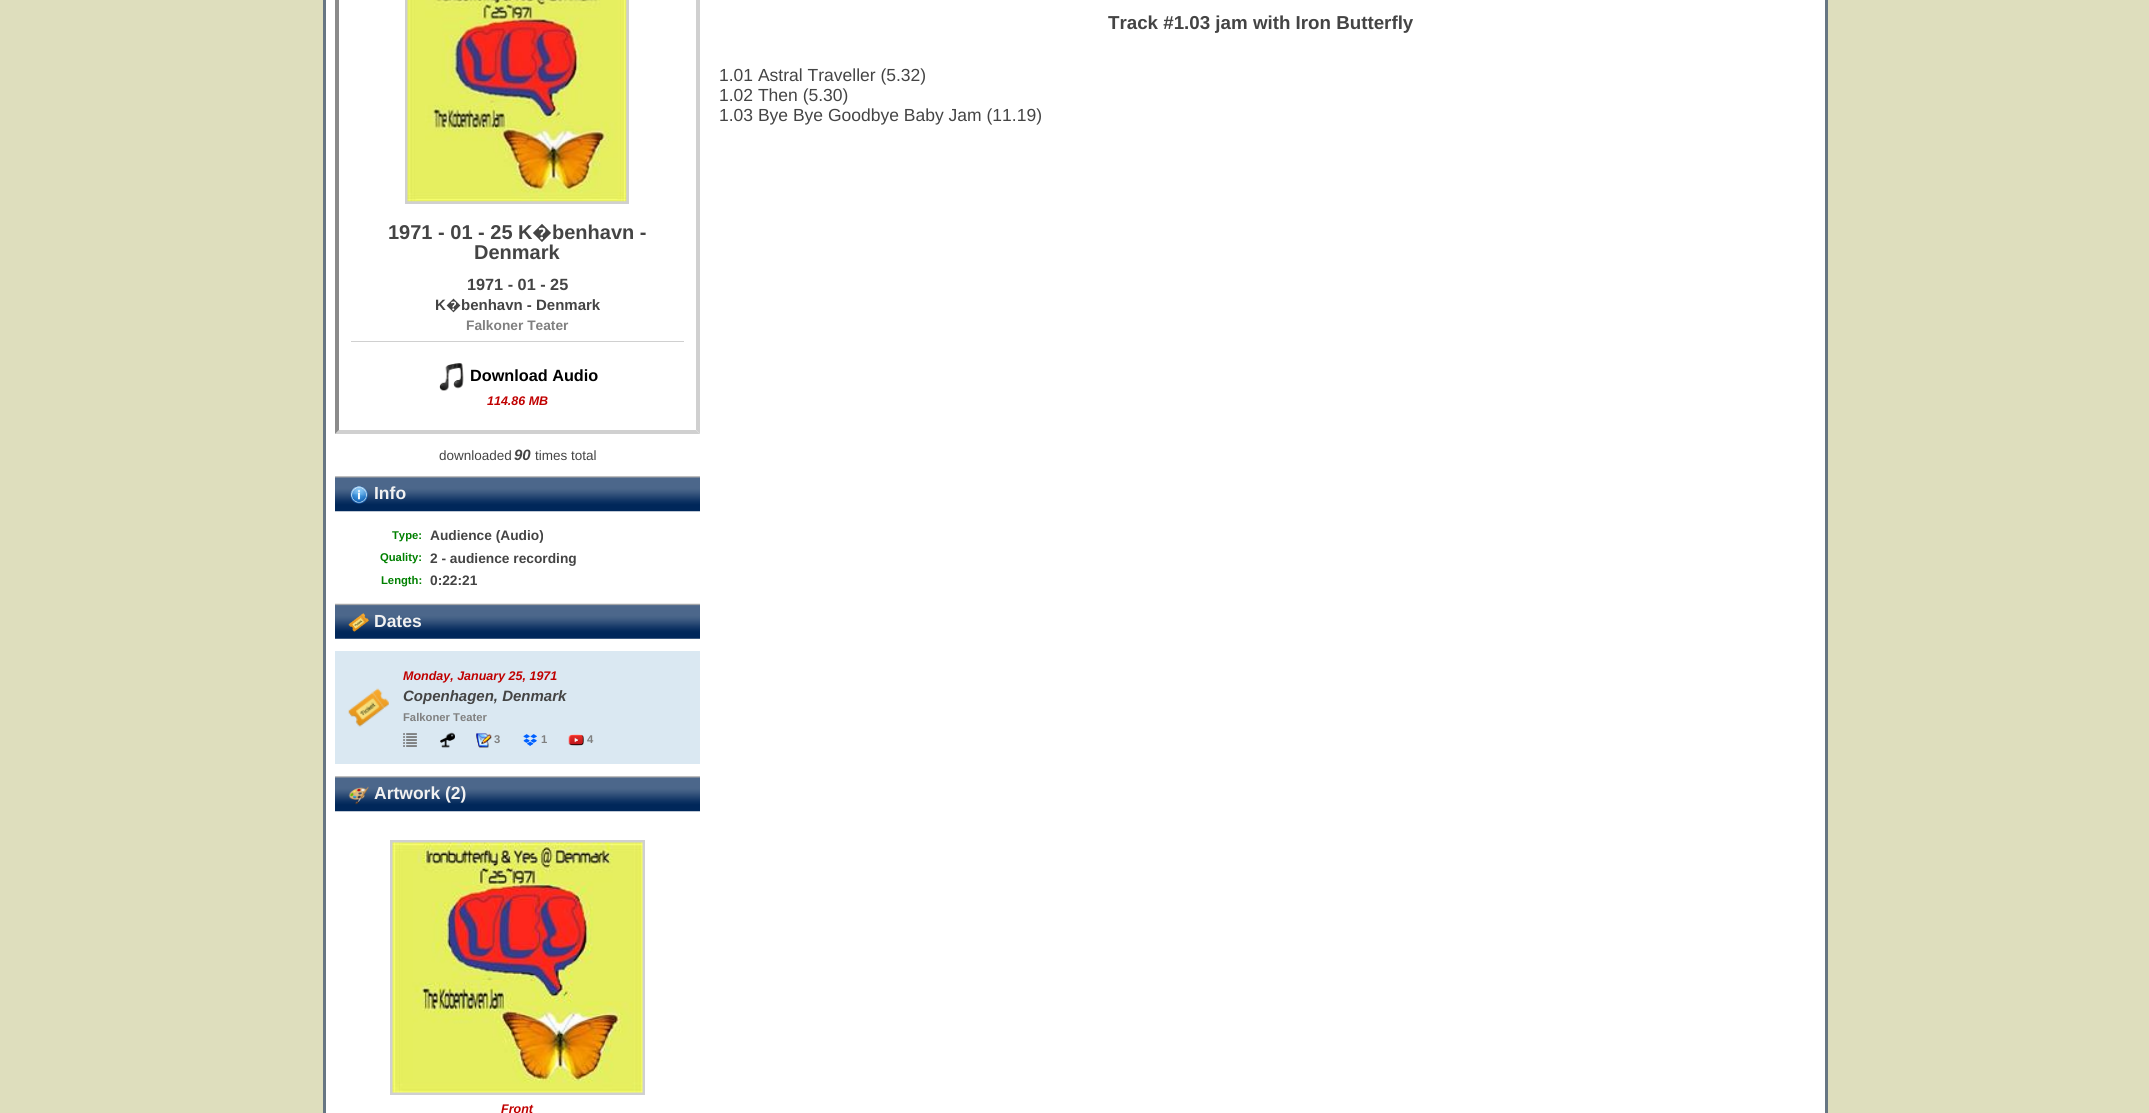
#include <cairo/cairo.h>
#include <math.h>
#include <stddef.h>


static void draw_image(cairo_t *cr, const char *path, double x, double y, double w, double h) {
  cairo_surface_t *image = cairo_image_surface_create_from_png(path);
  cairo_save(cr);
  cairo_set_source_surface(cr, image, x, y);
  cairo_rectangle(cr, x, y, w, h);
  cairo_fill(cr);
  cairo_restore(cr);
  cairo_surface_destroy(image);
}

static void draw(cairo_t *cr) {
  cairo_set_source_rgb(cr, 222 / 255.0, 222 / 255.0, 189 / 255.0);
  cairo_paint(cr);
  cairo_set_source_rgb(cr, 1, 1, 1);
  cairo_rectangle(cr, 324.5, -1.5, 1502, 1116);
  cairo_fill_preserve(cr);
  cairo_set_source_rgb(cr, 103 / 255.0, 118 / 255.0, 131 / 255.0);
  cairo_set_line_width(cr, 3);
  cairo_stroke(cr);
  cairo_set_source_rgb(cr, 208 / 255.0, 208 / 255.0, 208 / 255.0);
  cairo_new_path(cr);
  cairo_move_to(cr, 700, -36);
  cairo_line_to(cr, 700, 434);
  cairo_line_to(cr, 696, 430);
  cairo_line_to(cr, 696, -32);
  cairo_close_path(cr);
  cairo_fill(cr);
  cairo_new_path(cr);
  cairo_move_to(cr, 700, 434);
  cairo_line_to(cr, 335, 434);
  cairo_line_to(cr, 339, 430);
  cairo_line_to(cr, 696, 430);
  cairo_close_path(cr);
  cairo_fill(cr);
  cairo_set_source_rgb(cr, 139 / 255.0, 139 / 255.0, 139 / 255.0);
  cairo_new_path(cr);
  cairo_move_to(cr, 335, 434);
  cairo_line_to(cr, 335, -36);
  cairo_line_to(cr, 339, -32);
  cairo_line_to(cr, 339, 430);
  cairo_close_path(cr);
  cairo_fill(cr);
  cairo_rectangle(cr, 406.5, -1.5, 221, 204);
  cairo_set_source_rgb(cr, 208 / 255.0, 208 / 255.0, 208 / 255.0);
  cairo_stroke(cr);
  draw_image(cr, "images/1.png", 407, 0, 220, 202);
  cairo_rectangle(cr, 351, 341, 333, 1);
  cairo_fill(cr);
  draw_image(cr, "images/2.png", 439, 363, 25, 28);
  draw_image(cr, "images/3.png", 335, 476, 365, 36);
  draw_image(cr, "images/4.png", 350, 486, 18, 18);
  draw_image(cr, "images/5.png", 335, 603, 365, 36);
  draw_image(cr, "images/6.png", 348, 613, 21, 19);
  cairo_set_source_rgb(cr, 218 / 255.0, 232 / 255.0, 242 / 255.0);
  cairo_rectangle(cr, 335, 651, 365, 113);
  cairo_fill(cr);
  draw_image(cr, "images/7.png", 348, 688, 41, 39);
  draw_image(cr, "images/8.png", 403, 733, 14, 14);
  draw_image(cr, "images/9.png", 440, 732, 15, 16);
  draw_image(cr, "images/10.png", 476, 733, 16, 15);
  draw_image(cr, "images/11.png", 523, 734, 15, 12);
  draw_image(cr, "images/12.png", 568, 734, 16, 12);
  draw_image(cr, "images/3.png", 335, 776, 365, 36);
  draw_image(cr, "images/13.png", 348, 786, 21, 19);
  cairo_rectangle(cr, 391.5, 841.5, 252, 252);
  cairo_set_source_rgb(cr, 208 / 255.0, 208 / 255.0, 208 / 255.0);
  cairo_stroke(cr);
  draw_image(cr, "images/14.png", 392, 842, 251, 251);
  cairo_select_font_face(cr, "Liberation Sans", CAIRO_FONT_SLANT_NORMAL, CAIRO_FONT_WEIGHT_BOLD);
  cairo_set_font_size(cr, 18.75);
  cairo_set_source_rgb(cr, 68 / 255.0, 68 / 255.0, 68 / 255.0);
  cairo_move_to(cr, 1108, 29);
  cairo_show_text(cr, "Track #1.03 jam with Iron Butterfly");
  cairo_select_font_face(cr, "Liberation Sans", CAIRO_FONT_SLANT_NORMAL, CAIRO_FONT_WEIGHT_NORMAL);
  cairo_set_font_size(cr, 17.5);
  cairo_move_to(cr, 719, 81);
  cairo_show_text(cr, "1.01 Astral Traveller (5.32)");
  cairo_move_to(cr, 719, 101);
  cairo_show_text(cr, "1.02 Then (5.30)");
  cairo_move_to(cr, 719, 121);
  cairo_show_text(cr, "1.03 Bye Bye Goodbye Baby Jam (11.19)");
  cairo_select_font_face(cr, "Liberation Sans", CAIRO_FONT_SLANT_NORMAL, CAIRO_FONT_WEIGHT_BOLD);
  cairo_set_font_size(cr, 20);
  cairo_move_to(cr, 388, 239);
  cairo_show_text(cr, "1971 - 01 - 25 K");
  cairo_select_font_face(cr, "Noto Sans", CAIRO_FONT_SLANT_NORMAL, CAIRO_FONT_WEIGHT_BOLD);
  cairo_move_to(cr, 532, 239);
  cairo_show_text(cr, "�");
  cairo_select_font_face(cr, "Liberation Sans", CAIRO_FONT_SLANT_NORMAL, CAIRO_FONT_WEIGHT_BOLD);
  cairo_move_to(cr, 552, 239);
  cairo_show_text(cr, "benhavn -");
  cairo_move_to(cr, 474, 259);
  cairo_show_text(cr, "Denmark");
  cairo_set_font_size(cr, 16.25);
  cairo_move_to(cr, 467, 290);
  cairo_show_text(cr, "1971 - 01 - 25");
  cairo_set_font_size(cr, 15);
  cairo_move_to(cr, 435, 310);
  cairo_show_text(cr, "K");
  cairo_select_font_face(cr, "Noto Sans", CAIRO_FONT_SLANT_NORMAL, CAIRO_FONT_WEIGHT_BOLD);
  cairo_move_to(cr, 446, 310);
  cairo_show_text(cr, "�");
  cairo_select_font_face(cr, "Liberation Sans", CAIRO_FONT_SLANT_NORMAL, CAIRO_FONT_WEIGHT_BOLD);
  cairo_move_to(cr, 461, 310);
  cairo_show_text(cr, "benhavn - Denmark");
  cairo_set_font_size(cr, 13.75);
  cairo_set_source_rgb(cr, 128 / 255.0, 128 / 255.0, 128 / 255.0);
  cairo_move_to(cr, 466, 330);
  cairo_show_text(cr, "Falkoner Teater");
  cairo_set_font_size(cr, 16.25);
  cairo_set_source_rgb(cr, 0, 0, 0);
  cairo_move_to(cr, 470, 381);
  cairo_show_text(cr, "Download Audio");
  cairo_select_font_face(cr, "Liberation Sans", CAIRO_FONT_SLANT_ITALIC, CAIRO_FONT_WEIGHT_BOLD);
  cairo_set_font_size(cr, 12.5);
  cairo_set_source_rgb(cr, 192 / 255.0, 0, 0);
  cairo_move_to(cr, 487, 405);
  cairo_show_text(cr, "114.86 MB");
  cairo_select_font_face(cr, "Liberation Sans", CAIRO_FONT_SLANT_NORMAL, CAIRO_FONT_WEIGHT_NORMAL);
  cairo_set_font_size(cr, 13.5);
  cairo_set_source_rgb(cr, 68 / 255.0, 68 / 255.0, 68 / 255.0);
  cairo_move_to(cr, 439, 460);
  cairo_show_text(cr, "downloaded");
  cairo_select_font_face(cr, "Liberation Sans", CAIRO_FONT_SLANT_ITALIC, CAIRO_FONT_WEIGHT_BOLD);
  cairo_set_font_size(cr, 15);
  cairo_move_to(cr, 514, 460);
  cairo_show_text(cr, "90");
  cairo_select_font_face(cr, "Liberation Sans", CAIRO_FONT_SLANT_NORMAL, CAIRO_FONT_WEIGHT_NORMAL);
  cairo_set_font_size(cr, 13.5);
  cairo_move_to(cr, 535, 460);
  cairo_show_text(cr, "times total");
  cairo_select_font_face(cr, "Liberation Sans", CAIRO_FONT_SLANT_NORMAL, CAIRO_FONT_WEIGHT_BOLD);
  cairo_set_font_size(cr, 17.5);
  cairo_set_source_rgb(cr, 241 / 255.0, 241 / 255.0, 241 / 255.0);
  cairo_move_to(cr, 374, 499);
  cairo_show_text(cr, "Info");
  cairo_set_font_size(cr, 11.25);
  cairo_set_source_rgb(cr, 0, 128 / 255.0, 0);
  cairo_move_to(cr, 392, 539);
  cairo_show_text(cr, "Type:");
  cairo_set_font_size(cr, 13.75);
  cairo_set_source_rgb(cr, 68 / 255.0, 68 / 255.0, 68 / 255.0);
  cairo_move_to(cr, 430, 540);
  cairo_show_text(cr, "Audience (Audio)");
  cairo_set_font_size(cr, 11.25);
  cairo_set_source_rgb(cr, 0, 128 / 255.0, 0);
  cairo_move_to(cr, 380, 561);
  cairo_show_text(cr, "Quality:");
  cairo_set_font_size(cr, 13.75);
  cairo_set_source_rgb(cr, 68 / 255.0, 68 / 255.0, 68 / 255.0);
  cairo_move_to(cr, 430, 563);
  cairo_show_text(cr, "2 - audience recording");
  cairo_set_font_size(cr, 11.25);
  cairo_set_source_rgb(cr, 0, 128 / 255.0, 0);
  cairo_move_to(cr, 381, 584);
  cairo_show_text(cr, "Length:");
  cairo_set_font_size(cr, 13.75);
  cairo_set_source_rgb(cr, 68 / 255.0, 68 / 255.0, 68 / 255.0);
  cairo_move_to(cr, 430, 585);
  cairo_show_text(cr, "0:22:21");
  cairo_set_font_size(cr, 17.5);
  cairo_set_source_rgb(cr, 241 / 255.0, 241 / 255.0, 241 / 255.0);
  cairo_move_to(cr, 374, 627);
  cairo_show_text(cr, "Dates");
  cairo_select_font_face(cr, "Liberation Sans", CAIRO_FONT_SLANT_ITALIC, CAIRO_FONT_WEIGHT_BOLD);
  cairo_set_font_size(cr, 12.5);
  cairo_set_source_rgb(cr, 192 / 255.0, 0, 0);
  cairo_move_to(cr, 403, 680);
  cairo_show_text(cr, "Monday, January 25, 1971");
  cairo_set_font_size(cr, 15);
  cairo_set_source_rgb(cr, 68 / 255.0, 68 / 255.0, 68 / 255.0);
  cairo_move_to(cr, 403, 701);
  cairo_show_text(cr, "Copenhagen, Denmark");
  cairo_select_font_face(cr, "Liberation Sans", CAIRO_FONT_SLANT_NORMAL, CAIRO_FONT_WEIGHT_BOLD);
  cairo_set_font_size(cr, 11.25);
  cairo_set_source_rgb(cr, 128 / 255.0, 128 / 255.0, 128 / 255.0);
  cairo_move_to(cr, 403, 721);
  cairo_show_text(cr, "Falkoner Teater");
  cairo_move_to(cr, 494, 743);
  cairo_show_text(cr, "3");
  cairo_move_to(cr, 541, 743);
  cairo_show_text(cr, "1");
  cairo_move_to(cr, 587, 743);
  cairo_show_text(cr, "4");
  cairo_set_font_size(cr, 17.5);
  cairo_set_source_rgb(cr, 241 / 255.0, 241 / 255.0, 241 / 255.0);
  cairo_move_to(cr, 374, 799);
  cairo_show_text(cr, "Artwork (2)");
  cairo_select_font_face(cr, "Liberation Sans", CAIRO_FONT_SLANT_ITALIC, CAIRO_FONT_WEIGHT_BOLD);
  cairo_set_font_size(cr, 12.5);
  cairo_set_source_rgb(cr, 192 / 255.0, 0, 0);
  cairo_move_to(cr, 501, 1113);
  cairo_show_text(cr, "Front");
}

int main(void) {
  cairo_surface_t *surface = cairo_image_surface_create(CAIRO_FORMAT_RGB24, 2149, 1113);
  cairo_t *cr = cairo_create(surface);
  cairo_font_options_t *options = cairo_font_options_create();
  cairo_font_options_set_hint_metrics(options, CAIRO_HINT_METRICS_OFF);
  cairo_font_options_set_hint_style(options, CAIRO_HINT_STYLE_NONE);
  cairo_set_font_options(cr, options);
  cairo_set_miter_limit(cr, 4);
  draw(cr);
  cairo_surface_write_to_png(surface, "out.png");
  cairo_font_options_destroy(options);
  cairo_destroy(cr);
  cairo_surface_destroy(surface);
  return 0;
}
